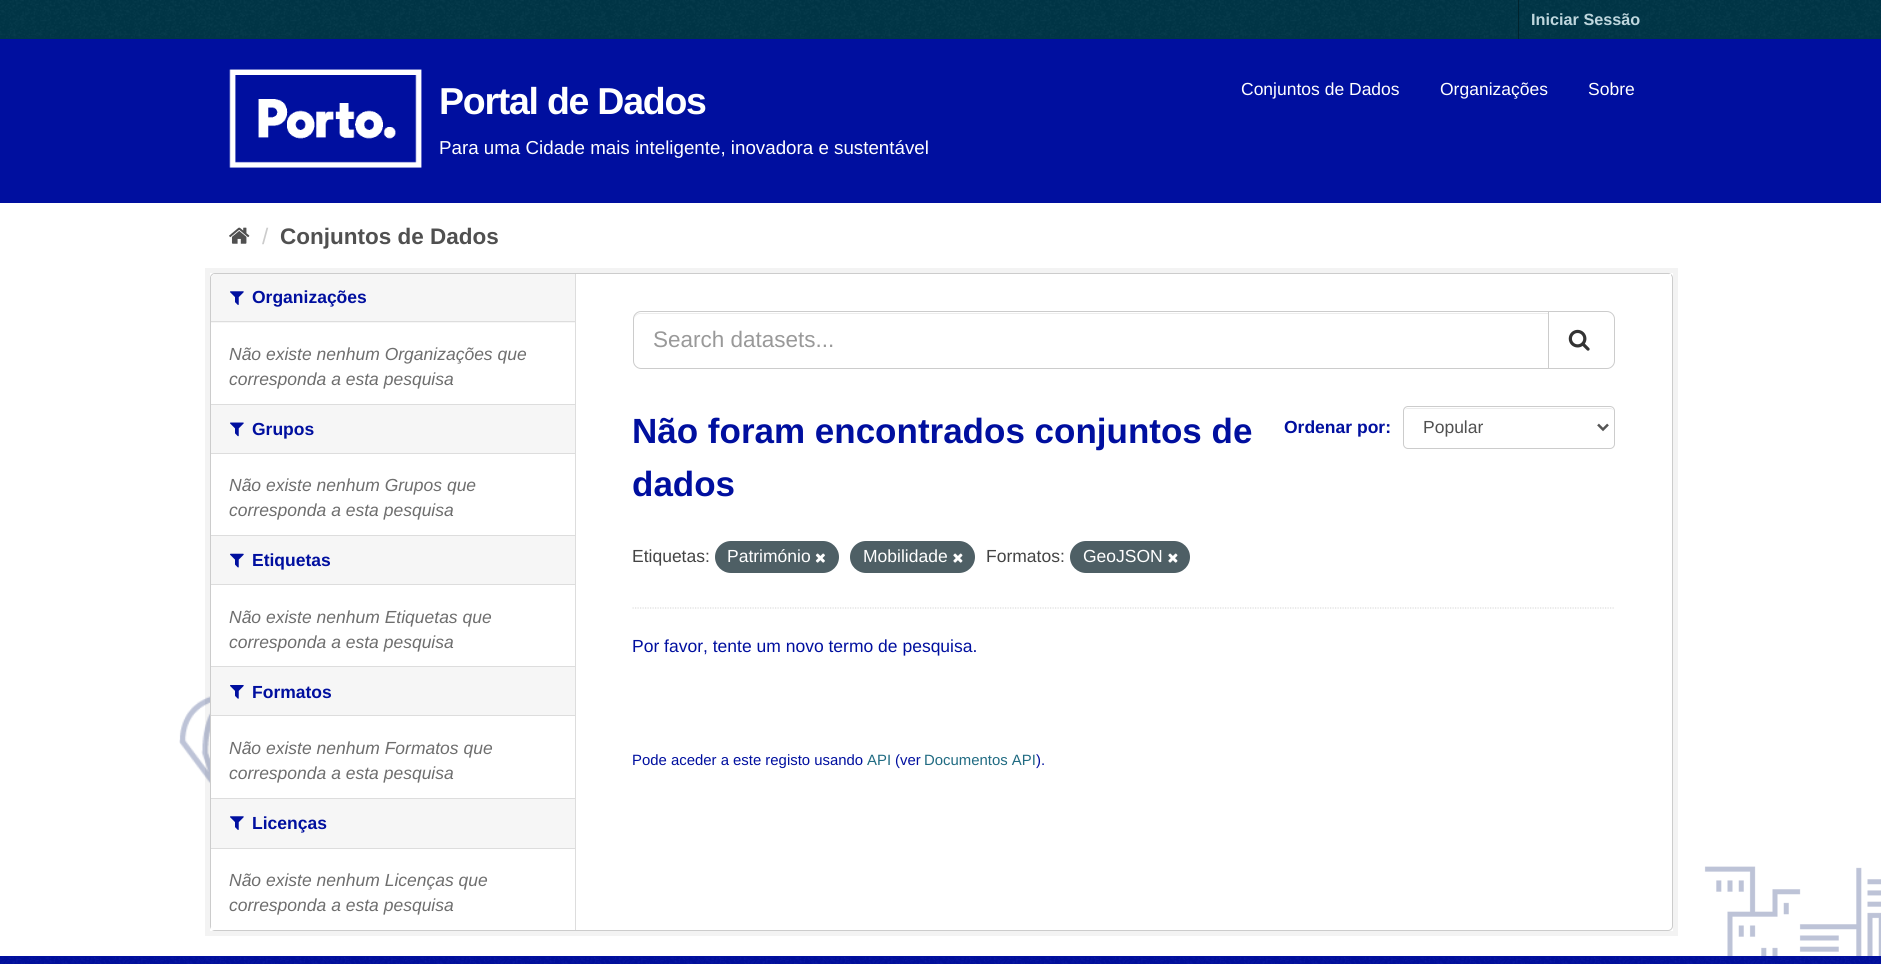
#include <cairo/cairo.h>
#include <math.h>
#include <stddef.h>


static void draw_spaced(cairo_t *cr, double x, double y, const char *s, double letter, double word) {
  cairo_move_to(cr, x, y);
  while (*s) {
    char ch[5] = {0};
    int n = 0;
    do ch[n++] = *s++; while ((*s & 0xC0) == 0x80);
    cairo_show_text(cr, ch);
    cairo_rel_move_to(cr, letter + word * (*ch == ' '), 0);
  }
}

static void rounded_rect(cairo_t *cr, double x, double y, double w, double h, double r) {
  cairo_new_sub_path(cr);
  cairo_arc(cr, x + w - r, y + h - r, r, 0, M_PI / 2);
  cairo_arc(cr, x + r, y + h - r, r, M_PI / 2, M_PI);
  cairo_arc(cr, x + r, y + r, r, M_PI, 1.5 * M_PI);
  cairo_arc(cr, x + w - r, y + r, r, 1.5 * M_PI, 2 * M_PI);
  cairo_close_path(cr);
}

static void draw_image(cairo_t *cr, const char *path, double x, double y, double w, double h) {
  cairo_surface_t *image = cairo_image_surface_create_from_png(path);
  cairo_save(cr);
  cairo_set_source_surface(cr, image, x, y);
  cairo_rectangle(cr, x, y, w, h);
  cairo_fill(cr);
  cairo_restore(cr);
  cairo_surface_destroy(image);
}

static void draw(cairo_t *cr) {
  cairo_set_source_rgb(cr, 0, 54 / 255.0, 71 / 255.0);
  cairo_paint(cr);
  draw_image(cr, "images/1.png", 0, 0, 1881, 38);
  cairo_set_source_rgb(cr, 0, 35 / 255.0, 46 / 255.0);
  cairo_rectangle(cr, 1518, 0, 1, 39);
  cairo_fill(cr);
  cairo_set_source_rgb(cr, 0, 15 / 255.0, 159 / 255.0);
  cairo_rectangle(cr, 0, 39, 1881, 164);
  cairo_fill(cr);
  draw_image(cr, "images/2.png", 229, 69, 193, 99);
  cairo_set_source_rgb(cr, 1, 1, 1);
  cairo_rectangle(cr, 0, 203, 1881, 753);
  cairo_fill(cr);
  draw_image(cr, "images/3.png", 179, 696, 1702, 260);
  draw_image(cr, "images/4.png", 229, 227, 21, 17);
  cairo_rectangle(cr, 207.5, 270.5, 1468, 663);
  cairo_set_source_rgba(cr, 0, 0, 0, 0.05);
  cairo_set_line_width(cr, 5);
  cairo_stroke(cr);
  cairo_set_source_rgb(cr, 1, 1, 1);
  rounded_rect(cr, 210.5, 273.5, 1462, 657, 4.5);
  cairo_fill_preserve(cr);
  cairo_set_source_rgb(cr, 204 / 255.0, 204 / 255.0, 204 / 255.0);
  cairo_set_line_width(cr, 1);
  cairo_stroke(cr);
  cairo_set_source_rgb(cr, 246 / 255.0, 246 / 255.0, 246 / 255.0);
  cairo_new_path(cr);
  cairo_move_to(cr, 215, 274);
  cairo_line_to(cr, 575, 274);
  cairo_line_to(cr, 575, 323);
  cairo_line_to(cr, 211, 323);
  cairo_line_to(cr, 211, 278);
  cairo_curve_to(cr, 211, 276, 213, 274, 215, 274);
  cairo_close_path(cr);
  cairo_fill(cr);
  cairo_set_source_rgb(cr, 221 / 255.0, 221 / 255.0, 221 / 255.0);
  cairo_rectangle(cr, 211, 321, 364, 1);
  cairo_fill(cr);
  draw_image(cr, "images/5.png", 230, 291, 14, 14);
  cairo_set_source_rgb(cr, 246 / 255.0, 246 / 255.0, 246 / 255.0);
  cairo_rectangle(cr, 211, 405, 364, 48);
  cairo_fill(cr);
  cairo_set_source_rgb(cr, 221 / 255.0, 221 / 255.0, 221 / 255.0);
  cairo_rectangle(cr, 211, 404, 364, 1);
  cairo_fill(cr);
  cairo_rectangle(cr, 211, 453, 364, 1);
  cairo_fill(cr);
  draw_image(cr, "images/6.png", 230, 422, 14, 15);
  cairo_set_source_rgb(cr, 246 / 255.0, 246 / 255.0, 246 / 255.0);
  cairo_rectangle(cr, 211, 536, 364, 48);
  cairo_fill(cr);
  cairo_set_source_rgb(cr, 221 / 255.0, 221 / 255.0, 221 / 255.0);
  cairo_rectangle(cr, 211, 535, 364, 1);
  cairo_fill(cr);
  cairo_rectangle(cr, 211, 584, 364, 1);
  cairo_fill(cr);
  draw_image(cr, "images/7.png", 230, 553, 14, 15);
  cairo_set_source_rgb(cr, 246 / 255.0, 246 / 255.0, 246 / 255.0);
  cairo_rectangle(cr, 211, 667, 364, 48);
  cairo_fill(cr);
  cairo_set_source_rgb(cr, 221 / 255.0, 221 / 255.0, 221 / 255.0);
  cairo_rectangle(cr, 211, 666, 364, 1);
  cairo_fill(cr);
  cairo_rectangle(cr, 211, 715, 364, 1);
  cairo_fill(cr);
  draw_image(cr, "images/8.png", 230, 685, 14, 14);
  cairo_set_source_rgb(cr, 246 / 255.0, 246 / 255.0, 246 / 255.0);
  cairo_rectangle(cr, 211, 799, 364, 49);
  cairo_fill(cr);
  cairo_set_source_rgb(cr, 221 / 255.0, 221 / 255.0, 221 / 255.0);
  cairo_rectangle(cr, 211, 798, 364, 1);
  cairo_fill(cr);
  cairo_rectangle(cr, 211, 848, 364, 1);
  cairo_fill(cr);
  draw_image(cr, "images/5.png", 230, 816, 14, 14);
  cairo_set_source_rgb(cr, 1, 1, 1);
  cairo_rectangle(cr, 211, 927, 4, 3);
  cairo_fill(cr);
  cairo_set_source_rgb(cr, 221 / 255.0, 221 / 255.0, 221 / 255.0);
  cairo_rectangle(cr, 575, 274, 1, 656);
  cairo_fill(cr);
  cairo_set_source_rgb(cr, 1, 1, 1);
  cairo_rectangle(cr, 1669, 274, 2, 2);
  cairo_fill(cr);
  cairo_new_path(cr);
  cairo_move_to(cr, 632.5, 608);
  cairo_line_to(cr, 1615, 608);
  cairo_set_source_rgb(cr, 221 / 255.0, 221 / 255.0, 221 / 255.0);
  cairo_set_line_width(cr, 1.2);
  cairo_set_dash(cr, (double[]){1.25, 1.25}, 2, 0);
  cairo_stroke(cr);
  cairo_set_source_rgb(cr, 236 / 255.0, 236 / 255.0, 236 / 255.0);
  cairo_new_path(cr);
  cairo_move_to(cr, 640, 314);
  cairo_line_to(cr, 1548, 314);
  cairo_line_to(cr, 1548, 313);
  cairo_line_to(cr, 640, 313);
  cairo_curve_to(cr, 637, 313, 634, 316, 634, 319);
  cairo_line_to(cr, 634, 320);
  cairo_curve_to(cr, 634, 317, 637, 314, 640, 314);
  cairo_close_path(cr);
  cairo_fill(cr);
  cairo_new_path(cr);
  cairo_move_to(cr, 641, 311.5);
  cairo_line_to(cr, 1548.5, 311.5);
  cairo_line_to(cr, 1548.5, 368.5);
  cairo_line_to(cr, 641, 368.5);
  cairo_curve_to(cr, 637, 368.5, 633.5, 365, 633.5, 361);
  cairo_line_to(cr, 633.5, 319);
  cairo_curve_to(cr, 633.5, 315, 637, 311.5, 641, 311.5);
  cairo_close_path(cr);
  cairo_set_source_rgb(cr, 204 / 255.0, 204 / 255.0, 204 / 255.0);
  cairo_set_line_width(cr, 1);
  cairo_set_dash(cr, NULL, 0, 0);
  cairo_stroke(cr);
  cairo_set_source_rgb(cr, 1, 1, 1);
  cairo_new_path(cr);
  cairo_move_to(cr, 1548.5, 311.5);
  cairo_line_to(cr, 1607, 311.5);
  cairo_curve_to(cr, 1611, 311.5, 1614.5, 315, 1614.5, 319);
  cairo_line_to(cr, 1614.5, 361);
  cairo_curve_to(cr, 1614.5, 365, 1611, 368.5, 1607, 368.5);
  cairo_line_to(cr, 1548.5, 368.5);
  cairo_close_path(cr);
  cairo_fill_preserve(cr);
  cairo_set_source_rgb(cr, 204 / 255.0, 204 / 255.0, 204 / 255.0);
  cairo_stroke(cr);
  draw_image(cr, "images/9.png", 1568, 329, 22, 22);
  cairo_set_source_rgb(cr, 236 / 255.0, 236 / 255.0, 236 / 255.0);
  cairo_new_path(cr);
  cairo_move_to(cr, 1408, 409);
  cairo_line_to(cr, 1610, 409);
  cairo_curve_to(cr, 1612, 409, 1614, 410, 1614, 412);
  cairo_curve_to(cr, 1614, 410, 1612, 408, 1610, 408);
  cairo_line_to(cr, 1408, 408);
  cairo_curve_to(cr, 1406, 408, 1405, 409, 1404, 410);
  cairo_curve_to(cr, 1405, 409, 1406, 409, 1408, 409);
  cairo_close_path(cr);
  cairo_fill(cr);
  rounded_rect(cr, 1403.5, 406.5, 211, 42, 4.5);
  cairo_set_source_rgb(cr, 204 / 255.0, 204 / 255.0, 204 / 255.0);
  cairo_stroke(cr);
  cairo_new_path(cr);
  cairo_move_to(cr, 1598, 424.5);
  cairo_line_to(cr, 1603, 429.5);
  cairo_line_to(cr, 1608, 424.5);
  cairo_set_source_rgb(cr, 85 / 255.0, 85 / 255.0, 85 / 255.0);
  cairo_set_line_width(cr, 2.5);
  cairo_stroke(cr);
  cairo_set_source_rgb(cr, 78 / 255.0, 95 / 255.0, 101 / 255.0);
  rounded_rect(cr, 715, 541, 124, 32, 16);
  cairo_fill(cr);
  draw_image(cr, "images/10.png", 815, 553, 10, 10);
  rounded_rect(cr, 850, 541, 125, 32, 16);
  cairo_fill(cr);
  draw_image(cr, "images/11.png", 953, 553, 10, 10);
  rounded_rect(cr, 1070, 541, 120, 32, 16);
  cairo_fill(cr);
  draw_image(cr, "images/11.png", 1168, 553, 10, 10);
  cairo_set_source_rgb(cr, 0, 15 / 255.0, 159 / 255.0);
  cairo_rectangle(cr, 0, 956, 1881, 8);
  cairo_fill(cr);
  draw_image(cr, "images/12.png", 0, 957, 1881, 7);
  cairo_select_font_face(cr, "Liberation Sans", CAIRO_FONT_SLANT_NORMAL, CAIRO_FONT_WEIGHT_BOLD);
  cairo_set_font_size(cr, 16.25);
  cairo_set_source_rgb(cr, 191 / 255.0, 215 / 255.0, 222 / 255.0);
  cairo_move_to(cr, 1531, 25);
  cairo_show_text(cr, "Iniciar Sessão");
  cairo_set_font_size(cr, 37.5);
  cairo_set_source_rgb(cr, 1, 1, 1);
  draw_spaced(cr, 439, 114, "Portal de Dados", -1.25, 0);
  cairo_select_font_face(cr, "Liberation Sans", CAIRO_FONT_SLANT_NORMAL, CAIRO_FONT_WEIGHT_NORMAL);
  cairo_set_font_size(cr, 18.75);
  cairo_move_to(cr, 439, 154);
  cairo_show_text(cr, "Para uma Cidade mais inteligente, inovadora e sustentável");
  cairo_set_font_size(cr, 17.5);
  cairo_move_to(cr, 1241, 95);
  cairo_show_text(cr, "Conjuntos de Dados");
  cairo_move_to(cr, 1440, 95);
  cairo_show_text(cr, "Organizações");
  cairo_move_to(cr, 1588, 95);
  cairo_show_text(cr, "Sobre");
  cairo_set_font_size(cr, 22.5);
  cairo_set_source_rgb(cr, 204 / 255.0, 204 / 255.0, 204 / 255.0);
  cairo_move_to(cr, 262, 244);
  cairo_show_text(cr, "/");
  cairo_select_font_face(cr, "Liberation Sans", CAIRO_FONT_SLANT_NORMAL, CAIRO_FONT_WEIGHT_BOLD);
  cairo_set_source_rgb(cr, 80 / 255.0, 80 / 255.0, 80 / 255.0);
  cairo_move_to(cr, 280, 244);
  cairo_show_text(cr, "Conjuntos de Dados");
  cairo_set_font_size(cr, 17.5);
  cairo_set_source_rgb(cr, 0, 15 / 255.0, 159 / 255.0);
  cairo_move_to(cr, 252, 303);
  cairo_show_text(cr, "Organizações");
  cairo_select_font_face(cr, "Liberation Sans", CAIRO_FONT_SLANT_ITALIC, CAIRO_FONT_WEIGHT_NORMAL);
  cairo_set_source_rgb(cr, 110 / 255.0, 110 / 255.0, 110 / 255.0);
  cairo_move_to(cr, 229, 360);
  cairo_show_text(cr, "Não existe nenhum Organizações que");
  cairo_move_to(cr, 229, 385);
  cairo_show_text(cr, "corresponda a esta pesquisa");
  cairo_select_font_face(cr, "Liberation Sans", CAIRO_FONT_SLANT_NORMAL, CAIRO_FONT_WEIGHT_BOLD);
  cairo_set_source_rgb(cr, 0, 15 / 255.0, 159 / 255.0);
  cairo_move_to(cr, 252, 435);
  cairo_show_text(cr, "Grupos");
  cairo_select_font_face(cr, "Liberation Sans", CAIRO_FONT_SLANT_ITALIC, CAIRO_FONT_WEIGHT_NORMAL);
  cairo_set_source_rgb(cr, 110 / 255.0, 110 / 255.0, 110 / 255.0);
  cairo_move_to(cr, 229, 491);
  cairo_show_text(cr, "Não existe nenhum Grupos que");
  cairo_move_to(cr, 229, 516);
  cairo_show_text(cr, "corresponda a esta pesquisa");
  cairo_select_font_face(cr, "Liberation Sans", CAIRO_FONT_SLANT_NORMAL, CAIRO_FONT_WEIGHT_BOLD);
  cairo_set_source_rgb(cr, 0, 15 / 255.0, 159 / 255.0);
  cairo_move_to(cr, 252, 566);
  cairo_show_text(cr, "Etiquetas");
  cairo_select_font_face(cr, "Liberation Sans", CAIRO_FONT_SLANT_ITALIC, CAIRO_FONT_WEIGHT_NORMAL);
  cairo_set_source_rgb(cr, 110 / 255.0, 110 / 255.0, 110 / 255.0);
  cairo_move_to(cr, 229, 623);
  cairo_show_text(cr, "Não existe nenhum Etiquetas que");
  cairo_move_to(cr, 229, 648);
  cairo_show_text(cr, "corresponda a esta pesquisa");
  cairo_select_font_face(cr, "Liberation Sans", CAIRO_FONT_SLANT_NORMAL, CAIRO_FONT_WEIGHT_BOLD);
  cairo_set_source_rgb(cr, 0, 15 / 255.0, 159 / 255.0);
  cairo_move_to(cr, 252, 698);
  cairo_show_text(cr, "Formatos");
  cairo_select_font_face(cr, "Liberation Sans", CAIRO_FONT_SLANT_ITALIC, CAIRO_FONT_WEIGHT_NORMAL);
  cairo_set_source_rgb(cr, 110 / 255.0, 110 / 255.0, 110 / 255.0);
  cairo_move_to(cr, 229, 754);
  cairo_show_text(cr, "Não existe nenhum Formatos que");
  cairo_move_to(cr, 229, 779);
  cairo_show_text(cr, "corresponda a esta pesquisa");
  cairo_select_font_face(cr, "Liberation Sans", CAIRO_FONT_SLANT_NORMAL, CAIRO_FONT_WEIGHT_BOLD);
  cairo_set_source_rgb(cr, 0, 15 / 255.0, 159 / 255.0);
  cairo_move_to(cr, 252, 829);
  cairo_show_text(cr, "Licenças");
  cairo_select_font_face(cr, "Liberation Sans", CAIRO_FONT_SLANT_ITALIC, CAIRO_FONT_WEIGHT_NORMAL);
  cairo_set_source_rgb(cr, 110 / 255.0, 110 / 255.0, 110 / 255.0);
  cairo_move_to(cr, 229, 886);
  cairo_show_text(cr, "Não existe nenhum Licenças que");
  cairo_move_to(cr, 229, 911);
  cairo_show_text(cr, "corresponda a esta pesquisa");
  cairo_select_font_face(cr, "Liberation Sans", CAIRO_FONT_SLANT_NORMAL, CAIRO_FONT_WEIGHT_NORMAL);
  cairo_set_font_size(cr, 22.5);
  cairo_set_source_rgb(cr, 153 / 255.0, 153 / 255.0, 153 / 255.0);
  cairo_move_to(cr, 653, 347);
  cairo_show_text(cr, "Search datasets...");
  cairo_select_font_face(cr, "Liberation Sans", CAIRO_FONT_SLANT_NORMAL, CAIRO_FONT_WEIGHT_BOLD);
  cairo_set_font_size(cr, 35);
  cairo_set_source_rgb(cr, 0, 15 / 255.0, 159 / 255.0);
  cairo_move_to(cr, 632, 443);
  cairo_show_text(cr, "Não foram encontrados conjuntos de");
  cairo_move_to(cr, 632, 496);
  cairo_show_text(cr, "dados");
  cairo_set_font_size(cr, 17.5);
  cairo_move_to(cr, 1284, 433);
  cairo_show_text(cr, "Ordenar por:");
  cairo_select_font_face(cr, "Liberation Sans", CAIRO_FONT_SLANT_NORMAL, CAIRO_FONT_WEIGHT_NORMAL);
  cairo_set_source_rgb(cr, 80 / 255.0, 80 / 255.0, 80 / 255.0);
  cairo_move_to(cr, 1423, 433);
  cairo_show_text(cr, "Popular");
  cairo_set_source_rgb(cr, 68 / 255.0, 68 / 255.0, 68 / 255.0);
  cairo_move_to(cr, 632, 562);
  cairo_show_text(cr, "Etiquetas:");
  cairo_set_source_rgb(cr, 1, 1, 1);
  cairo_move_to(cr, 727, 562);
  cairo_show_text(cr, "Património");
  cairo_move_to(cr, 863, 562);
  cairo_show_text(cr, "Mobilidade");
  cairo_set_source_rgb(cr, 68 / 255.0, 68 / 255.0, 68 / 255.0);
  cairo_move_to(cr, 986, 562);
  cairo_show_text(cr, "Formatos:");
  cairo_set_source_rgb(cr, 1, 1, 1);
  cairo_move_to(cr, 1083, 562);
  cairo_show_text(cr, "GeoJSON");
  cairo_set_source_rgb(cr, 0, 15 / 255.0, 159 / 255.0);
  cairo_move_to(cr, 632, 652);
  cairo_show_text(cr, "Por favor, tente um novo termo de pesquisa.");
  cairo_set_font_size(cr, 14.9);
  cairo_move_to(cr, 632, 765);
  cairo_show_text(cr, "Pode aceder a este registo usando");
  cairo_set_source_rgb(cr, 32 / 255.0, 107 / 255.0, 130 / 255.0);
  cairo_move_to(cr, 867, 765);
  cairo_show_text(cr, "API");
  cairo_set_source_rgb(cr, 0, 15 / 255.0, 159 / 255.0);
  cairo_move_to(cr, 895, 765);
  cairo_show_text(cr, "(ver");
  cairo_set_source_rgb(cr, 32 / 255.0, 107 / 255.0, 130 / 255.0);
  cairo_move_to(cr, 924, 765);
  cairo_show_text(cr, "Documentos API");
  cairo_set_source_rgb(cr, 0, 15 / 255.0, 159 / 255.0);
  cairo_move_to(cr, 1036, 765);
  cairo_show_text(cr, ").");
}

int main(void) {
  cairo_surface_t *surface = cairo_image_surface_create(CAIRO_FORMAT_RGB24, 1881, 964);
  cairo_t *cr = cairo_create(surface);
  cairo_font_options_t *options = cairo_font_options_create();
  cairo_font_options_set_hint_metrics(options, CAIRO_HINT_METRICS_OFF);
  cairo_font_options_set_hint_style(options, CAIRO_HINT_STYLE_NONE);
  cairo_set_font_options(cr, options);
  cairo_set_miter_limit(cr, 4);
  draw(cr);
  cairo_surface_write_to_png(surface, "out.png");
  cairo_font_options_destroy(options);
  cairo_destroy(cr);
  cairo_surface_destroy(surface);
  return 0;
}
